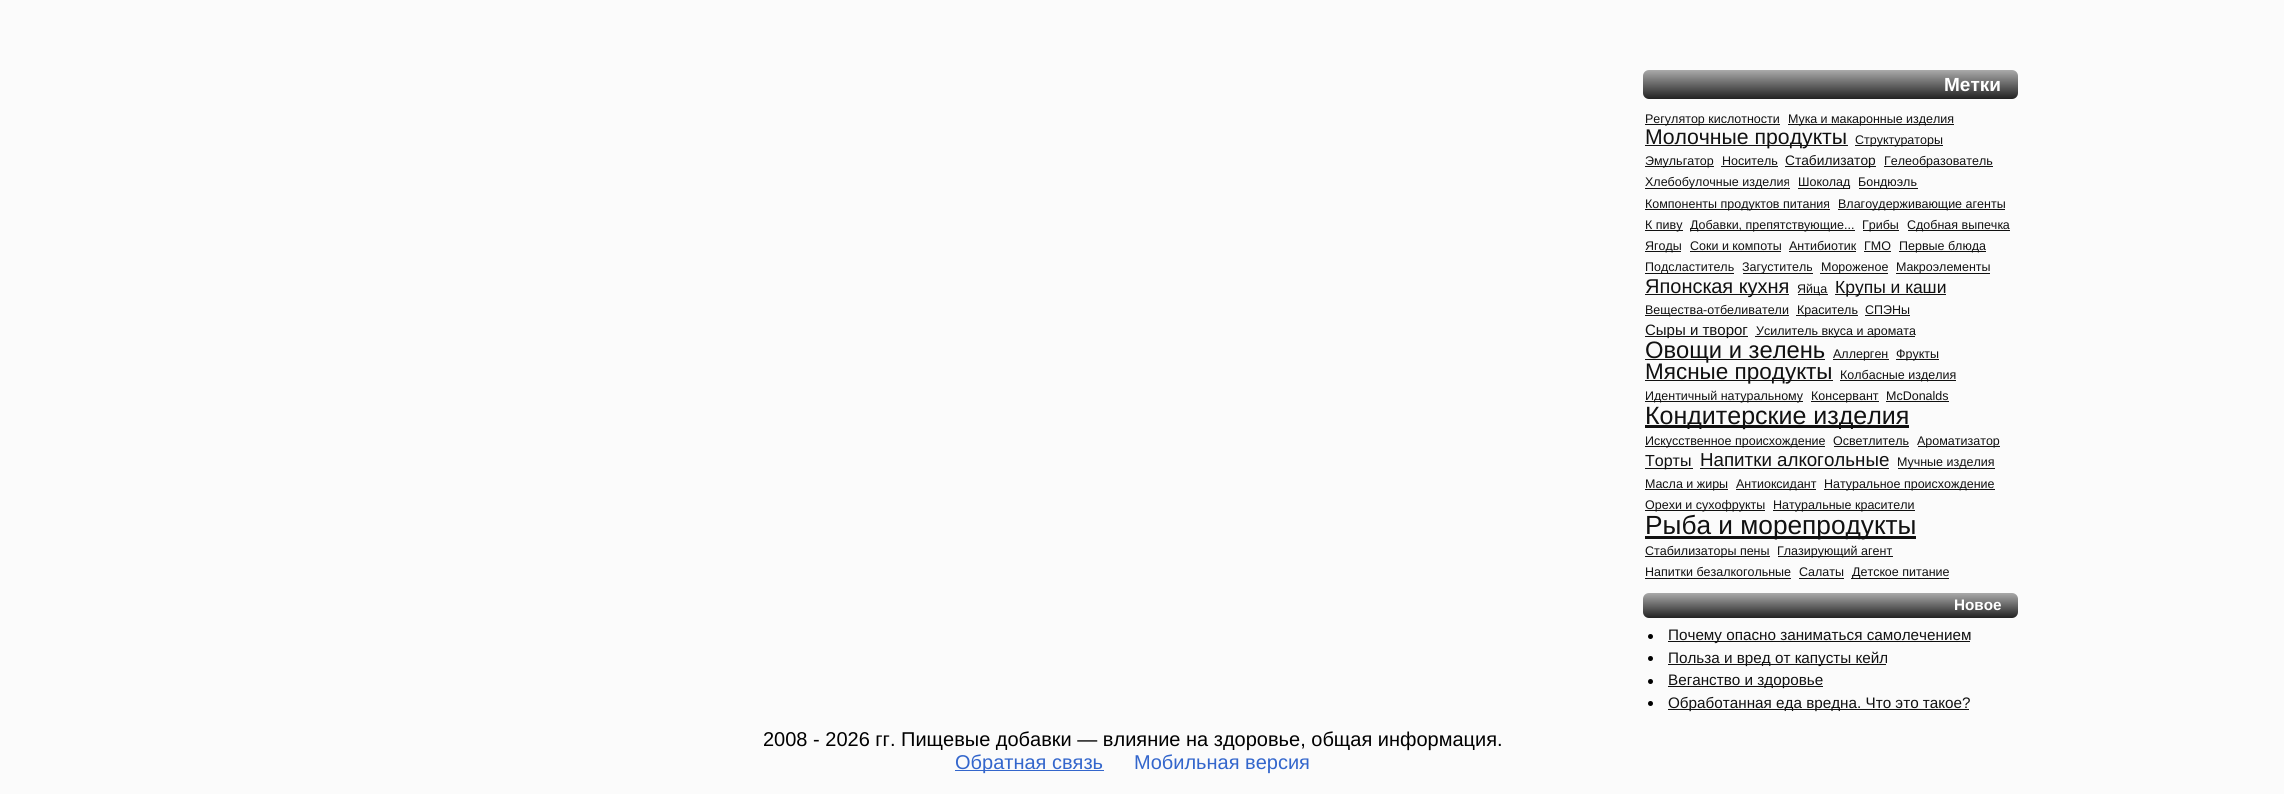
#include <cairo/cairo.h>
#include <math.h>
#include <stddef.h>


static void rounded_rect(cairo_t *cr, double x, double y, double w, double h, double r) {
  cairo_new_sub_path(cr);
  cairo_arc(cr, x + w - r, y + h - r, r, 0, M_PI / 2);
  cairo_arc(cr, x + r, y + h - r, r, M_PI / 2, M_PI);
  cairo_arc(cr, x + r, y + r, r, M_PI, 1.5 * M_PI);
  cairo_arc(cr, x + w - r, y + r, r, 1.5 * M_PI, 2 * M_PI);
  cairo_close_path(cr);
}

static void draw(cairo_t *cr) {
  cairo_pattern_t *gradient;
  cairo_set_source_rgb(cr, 251 / 255.0, 251 / 255.0, 251 / 255.0);
  cairo_paint(cr);
  gradient = cairo_pattern_create_linear(1643, 70, 1643, 99);
  cairo_pattern_add_color_stop_rgba(gradient, 0, 170 / 255.0, 170 / 255.0, 170 / 255.0, 1);
  cairo_pattern_add_color_stop_rgba(gradient, 1, 34 / 255.0, 34 / 255.0, 34 / 255.0, 1);
  cairo_set_source(cr, gradient);
  cairo_pattern_destroy(gradient);
  rounded_rect(cr, 1643, 70, 375, 29, 6);
  cairo_fill(cr);
  cairo_set_source_rgb(cr, 17 / 255.0, 17 / 255.0, 17 / 255.0);
  cairo_rectangle(cr, 1645, 124, 135, 1);
  cairo_fill(cr);
  cairo_rectangle(cr, 1788, 124, 166, 1);
  cairo_fill(cr);
  cairo_rectangle(cr, 1645, 145, 203, 1);
  cairo_fill(cr);
  cairo_rectangle(cr, 1855, 145, 88, 1);
  cairo_fill(cr);
  cairo_rectangle(cr, 1645, 166, 69, 1);
  cairo_fill(cr);
  cairo_rectangle(cr, 1721, 166, 57, 1);
  cairo_fill(cr);
  cairo_rectangle(cr, 1785, 166, 91, 1);
  cairo_fill(cr);
  cairo_rectangle(cr, 1884, 166, 109, 1);
  cairo_fill(cr);
  cairo_rectangle(cr, 1645, 188, 145, 1);
  cairo_fill(cr);
  cairo_rectangle(cr, 1798, 188, 52, 1);
  cairo_fill(cr);
  cairo_rectangle(cr, 1859, 188, 59, 1);
  cairo_fill(cr);
  cairo_rectangle(cr, 1645, 209, 185, 1);
  cairo_fill(cr);
  cairo_rectangle(cr, 1838, 209, 167, 1);
  cairo_fill(cr);
  cairo_rectangle(cr, 1645, 230, 38, 1);
  cairo_fill(cr);
  cairo_rectangle(cr, 1690, 230, 165, 1);
  cairo_fill(cr);
  cairo_rectangle(cr, 1863, 230, 36, 1);
  cairo_fill(cr);
  cairo_rectangle(cr, 1908, 230, 102, 1);
  cairo_fill(cr);
  cairo_rectangle(cr, 1645, 251, 36, 1);
  cairo_fill(cr);
  cairo_rectangle(cr, 1690, 251, 91, 1);
  cairo_fill(cr);
  cairo_rectangle(cr, 1789, 251, 67, 1);
  cairo_fill(cr);
  cairo_rectangle(cr, 1864, 251, 27, 1);
  cairo_fill(cr);
  cairo_rectangle(cr, 1899, 251, 87, 1);
  cairo_fill(cr);
  cairo_rectangle(cr, 1645, 273, 89, 1);
  cairo_fill(cr);
  cairo_rectangle(cr, 1743, 273, 70, 1);
  cairo_fill(cr);
  cairo_rectangle(cr, 1820, 273, 68, 1);
  cairo_fill(cr);
  cairo_rectangle(cr, 1896, 273, 94, 1);
  cairo_fill(cr);
  cairo_rectangle(cr, 1645, 294, 144, 1);
  cairo_fill(cr);
  cairo_rectangle(cr, 1798, 294, 30, 1);
  cairo_fill(cr);
  cairo_rectangle(cr, 1835, 294, 111, 1);
  cairo_fill(cr);
  cairo_rectangle(cr, 1645, 315, 144, 1);
  cairo_fill(cr);
  cairo_rectangle(cr, 1796, 315, 62, 1);
  cairo_fill(cr);
  cairo_rectangle(cr, 1865, 315, 45, 1);
  cairo_fill(cr);
  cairo_rectangle(cr, 1645, 336, 103, 1);
  cairo_fill(cr);
  cairo_rectangle(cr, 1755, 336, 160, 1);
  cairo_fill(cr);
  cairo_rectangle(cr, 1645, 359, 180, 1);
  cairo_fill(cr);
  cairo_rectangle(cr, 1833, 359, 56, 1);
  cairo_fill(cr);
  cairo_rectangle(cr, 1896, 359, 43, 1);
  cairo_fill(cr);
  cairo_rectangle(cr, 1645, 380, 188, 1);
  cairo_fill(cr);
  cairo_rectangle(cr, 1840, 380, 116, 1);
  cairo_fill(cr);
  cairo_rectangle(cr, 1645, 401, 158, 1);
  cairo_fill(cr);
  cairo_rectangle(cr, 1811, 401, 68, 1);
  cairo_fill(cr);
  cairo_rectangle(cr, 1886, 401, 63, 1);
  cairo_fill(cr);
  cairo_rectangle(cr, 1645, 425, 264, 3);
  cairo_fill(cr);
  cairo_rectangle(cr, 1645, 446, 180, 1);
  cairo_fill(cr);
  cairo_rectangle(cr, 1834, 446, 75, 1);
  cairo_fill(cr);
  cairo_rectangle(cr, 1918, 446, 82, 1);
  cairo_fill(cr);
  cairo_rectangle(cr, 1645, 468, 48, 1);
  cairo_fill(cr);
  cairo_rectangle(cr, 1700, 468, 189, 1);
  cairo_fill(cr);
  cairo_rectangle(cr, 1898, 468, 97, 1);
  cairo_fill(cr);
  cairo_rectangle(cr, 1645, 489, 83, 1);
  cairo_fill(cr);
  cairo_rectangle(cr, 1736, 489, 80, 1);
  cairo_fill(cr);
  cairo_rectangle(cr, 1824, 489, 171, 1);
  cairo_fill(cr);
  cairo_rectangle(cr, 1645, 510, 120, 1);
  cairo_fill(cr);
  cairo_rectangle(cr, 1773, 510, 142, 1);
  cairo_fill(cr);
  cairo_rectangle(cr, 1645, 536, 271, 3);
  cairo_fill(cr);
  cairo_rectangle(cr, 1645, 556, 125, 1);
  cairo_fill(cr);
  cairo_rectangle(cr, 1778, 556, 115, 1);
  cairo_fill(cr);
  cairo_rectangle(cr, 1645, 578, 146, 1);
  cairo_fill(cr);
  cairo_rectangle(cr, 1799, 578, 45, 1);
  cairo_fill(cr);
  cairo_rectangle(cr, 1851, 578, 98, 1);
  cairo_fill(cr);
  gradient = cairo_pattern_create_linear(1643, 593, 1643, 618);
  cairo_pattern_add_color_stop_rgba(gradient, 0, 170 / 255.0, 170 / 255.0, 170 / 255.0, 1);
  cairo_pattern_add_color_stop_rgba(gradient, 1, 34 / 255.0, 34 / 255.0, 34 / 255.0, 1);
  cairo_set_source(cr, gradient);
  cairo_pattern_destroy(gradient);
  rounded_rect(cr, 1643, 593, 375, 25, 6);
  cairo_fill(cr);
  cairo_set_source_rgb(cr, 0, 0, 0);
  cairo_arc(cr, 1650.5, 636.5, 2.5, 0, 2 * M_PI);
  cairo_fill(cr);
  cairo_set_source_rgb(cr, 17 / 255.0, 17 / 255.0, 17 / 255.0);
  cairo_rectangle(cr, 1668, 641, 302, 1);
  cairo_fill(cr);
  cairo_set_source_rgb(cr, 0, 0, 0);
  cairo_arc(cr, 1650.5, 658.5, 2.5, 0, 2 * M_PI);
  cairo_fill(cr);
  cairo_set_source_rgb(cr, 17 / 255.0, 17 / 255.0, 17 / 255.0);
  cairo_rectangle(cr, 1668, 664, 218, 1);
  cairo_fill(cr);
  cairo_set_source_rgb(cr, 0, 0, 0);
  cairo_arc(cr, 1650.5, 681.5, 2.5, 0, 2 * M_PI);
  cairo_fill(cr);
  cairo_set_source_rgb(cr, 17 / 255.0, 17 / 255.0, 17 / 255.0);
  cairo_rectangle(cr, 1668, 686, 155, 1);
  cairo_fill(cr);
  cairo_set_source_rgb(cr, 0, 0, 0);
  cairo_arc(cr, 1650.5, 703.5, 2.5, 0, 2 * M_PI);
  cairo_fill(cr);
  cairo_set_source_rgb(cr, 17 / 255.0, 17 / 255.0, 17 / 255.0);
  cairo_rectangle(cr, 1668, 709, 301, 1);
  cairo_fill(cr);
  cairo_set_source_rgb(cr, 51 / 255.0, 102 / 255.0, 204 / 255.0);
  cairo_rectangle(cr, 955, 770, 149, 1);
  cairo_fill(cr);
  cairo_select_font_face(cr, "Liberation Sans", CAIRO_FONT_SLANT_NORMAL, CAIRO_FONT_WEIGHT_BOLD);
  cairo_set_font_size(cr, 19);
  cairo_set_source_rgb(cr, 1, 1, 1);
  cairo_move_to(cr, 1944, 91);
  cairo_show_text(cr, "Метки");
  cairo_select_font_face(cr, "Liberation Sans", CAIRO_FONT_SLANT_NORMAL, CAIRO_FONT_WEIGHT_NORMAL);
  cairo_set_font_size(cr, 12.5);
  cairo_set_source_rgb(cr, 17 / 255.0, 17 / 255.0, 17 / 255.0);
  cairo_move_to(cr, 1645, 123);
  cairo_show_text(cr, "Регулятор кислотности");
  cairo_move_to(cr, 1788, 123);
  cairo_show_text(cr, "Мука и макаронные изделия");
  cairo_set_font_size(cr, 21.25);
  cairo_move_to(cr, 1645, 144);
  cairo_show_text(cr, "Молочные продукты");
  cairo_set_font_size(cr, 12.5);
  cairo_move_to(cr, 1855, 144);
  cairo_show_text(cr, "Структураторы");
  cairo_move_to(cr, 1645, 165);
  cairo_show_text(cr, "Эмульгатор");
  cairo_move_to(cr, 1722, 165);
  cairo_show_text(cr, "Носитель");
  cairo_set_font_size(cr, 13.75);
  cairo_move_to(cr, 1785, 165);
  cairo_show_text(cr, "Стабилизатор");
  cairo_set_font_size(cr, 12.5);
  cairo_move_to(cr, 1884, 165);
  cairo_show_text(cr, "Гелеобразователь");
  cairo_move_to(cr, 1645, 186);
  cairo_show_text(cr, "Хлебобулочные изделия");
  cairo_move_to(cr, 1798, 186);
  cairo_show_text(cr, "Шоколад");
  cairo_move_to(cr, 1858, 186);
  cairo_show_text(cr, "Бондюэль");
  cairo_move_to(cr, 1645, 208);
  cairo_show_text(cr, "Компоненты продуктов питания");
  cairo_move_to(cr, 1838, 208);
  cairo_show_text(cr, "Влагоудерживающие агенты");
  cairo_move_to(cr, 1645, 229);
  cairo_show_text(cr, "К пиву");
  cairo_move_to(cr, 1690, 229);
  cairo_show_text(cr, "Добавки, препятствующие...");
  cairo_move_to(cr, 1862, 229);
  cairo_show_text(cr, "Грибы");
  cairo_move_to(cr, 1907, 229);
  cairo_show_text(cr, "Сдобная выпечка");
  cairo_move_to(cr, 1645, 250);
  cairo_show_text(cr, "Ягоды");
  cairo_move_to(cr, 1690, 250);
  cairo_show_text(cr, "Соки и компоты");
  cairo_move_to(cr, 1789, 250);
  cairo_show_text(cr, "Антибиотик");
  cairo_move_to(cr, 1864, 250);
  cairo_show_text(cr, "ГМО");
  cairo_move_to(cr, 1899, 250);
  cairo_show_text(cr, "Первые блюда");
  cairo_move_to(cr, 1645, 271);
  cairo_show_text(cr, "Подсластитель");
  cairo_move_to(cr, 1742, 271);
  cairo_show_text(cr, "Загуститель");
  cairo_move_to(cr, 1821, 271);
  cairo_show_text(cr, "Мороженое");
  cairo_move_to(cr, 1896, 271);
  cairo_show_text(cr, "Макроэлементы");
  cairo_set_font_size(cr, 20);
  cairo_move_to(cr, 1645, 293);
  cairo_show_text(cr, "Японская кухня");
  cairo_set_font_size(cr, 12.5);
  cairo_move_to(cr, 1797, 293);
  cairo_show_text(cr, "Яйца");
  cairo_set_font_size(cr, 17.5);
  cairo_move_to(cr, 1835, 293);
  cairo_show_text(cr, "Крупы и каши");
  cairo_set_font_size(cr, 12.5);
  cairo_move_to(cr, 1645, 314);
  cairo_show_text(cr, "Вещества-отбеливатели");
  cairo_move_to(cr, 1797, 314);
  cairo_show_text(cr, "Краситель");
  cairo_move_to(cr, 1865, 314);
  cairo_show_text(cr, "СПЭНы");
  cairo_set_font_size(cr, 15);
  cairo_move_to(cr, 1645, 335);
  cairo_show_text(cr, "Сыры и творог");
  cairo_set_font_size(cr, 12.5);
  cairo_move_to(cr, 1756, 335);
  cairo_show_text(cr, "Усилитель вкуса и аромата");
  cairo_set_font_size(cr, 23.75);
  cairo_move_to(cr, 1645, 358);
  cairo_show_text(cr, "Овощи и зелень");
  cairo_set_font_size(cr, 12.5);
  cairo_move_to(cr, 1833, 358);
  cairo_show_text(cr, "Аллерген");
  cairo_move_to(cr, 1896, 358);
  cairo_show_text(cr, "Фрукты");
  cairo_set_font_size(cr, 22.5);
  cairo_move_to(cr, 1645, 379);
  cairo_show_text(cr, "Мясные продукты");
  cairo_set_font_size(cr, 12.5);
  cairo_move_to(cr, 1840, 379);
  cairo_show_text(cr, "Колбасные изделия");
  cairo_move_to(cr, 1645, 400);
  cairo_show_text(cr, "Идентичный натуральному");
  cairo_move_to(cr, 1811, 400);
  cairo_show_text(cr, "Консервант");
  cairo_move_to(cr, 1886, 400);
  cairo_show_text(cr, "McDonalds");
  cairo_set_font_size(cr, 25);
  cairo_move_to(cr, 1645, 424);
  cairo_show_text(cr, "Кондитерские изделия");
  cairo_set_font_size(cr, 12.5);
  cairo_move_to(cr, 1645, 445);
  cairo_show_text(cr, "Искусственное происхождение");
  cairo_move_to(cr, 1833, 445);
  cairo_show_text(cr, "Осветлитель");
  cairo_move_to(cr, 1917, 445);
  cairo_show_text(cr, "Ароматизатор");
  cairo_set_font_size(cr, 16);
  cairo_move_to(cr, 1645, 466);
  cairo_show_text(cr, "Торты");
  cairo_set_font_size(cr, 18.75);
  cairo_move_to(cr, 1700, 466);
  cairo_show_text(cr, "Напитки алкогольные");
  cairo_set_font_size(cr, 12.5);
  cairo_move_to(cr, 1897, 466);
  cairo_show_text(cr, "Мучные изделия");
  cairo_move_to(cr, 1645, 488);
  cairo_show_text(cr, "Масла и жиры");
  cairo_move_to(cr, 1736, 488);
  cairo_show_text(cr, "Антиоксидант");
  cairo_move_to(cr, 1824, 488);
  cairo_show_text(cr, "Натуральное происхождение");
  cairo_move_to(cr, 1645, 509);
  cairo_show_text(cr, "Орехи и сухофрукты");
  cairo_move_to(cr, 1773, 509);
  cairo_show_text(cr, "Натуральные красители");
  cairo_set_font_size(cr, 26.25);
  cairo_move_to(cr, 1645, 534);
  cairo_show_text(cr, "Рыба и морепродукты");
  cairo_set_font_size(cr, 12.5);
  cairo_move_to(cr, 1645, 555);
  cairo_show_text(cr, "Стабилизаторы пены");
  cairo_move_to(cr, 1777, 555);
  cairo_show_text(cr, "Глазирующий агент");
  cairo_move_to(cr, 1645, 576);
  cairo_show_text(cr, "Напитки безалкогольные");
  cairo_move_to(cr, 1799, 576);
  cairo_show_text(cr, "Салаты");
  cairo_move_to(cr, 1852, 576);
  cairo_show_text(cr, "Детское питание");
  cairo_select_font_face(cr, "Liberation Sans", CAIRO_FONT_SLANT_NORMAL, CAIRO_FONT_WEIGHT_BOLD);
  cairo_set_font_size(cr, 15.25);
  cairo_set_source_rgb(cr, 1, 1, 1);
  cairo_move_to(cr, 1954, 610);
  cairo_show_text(cr, "Новое");
  cairo_select_font_face(cr, "Liberation Sans", CAIRO_FONT_SLANT_NORMAL, CAIRO_FONT_WEIGHT_NORMAL);
  cairo_set_source_rgb(cr, 17 / 255.0, 17 / 255.0, 17 / 255.0);
  cairo_move_to(cr, 1668, 640);
  cairo_show_text(cr, "Почему опасно заниматься самолечением");
  cairo_move_to(cr, 1668, 663);
  cairo_show_text(cr, "Польза и вред от капусты кейл");
  cairo_move_to(cr, 1668, 685);
  cairo_show_text(cr, "Веганство и здоровье");
  cairo_move_to(cr, 1668, 708);
  cairo_show_text(cr, "Обработанная еда вредна. Что это такое?");
  cairo_set_font_size(cr, 20);
  cairo_set_source_rgb(cr, 0, 0, 0);
  cairo_move_to(cr, 763, 746);
  cairo_show_text(cr, "2008 - 2026 гг. Пищевые добавки — влияние на здоровье, общая информация.");
  cairo_set_source_rgb(cr, 51 / 255.0, 102 / 255.0, 204 / 255.0);
  cairo_move_to(cr, 955, 769);
  cairo_show_text(cr, "Обратная связь");
  cairo_move_to(cr, 1134, 769);
  cairo_show_text(cr, "Мобильная версия");
}

int main(void) {
  cairo_surface_t *surface = cairo_image_surface_create(CAIRO_FORMAT_RGB24, 2284, 794);
  cairo_t *cr = cairo_create(surface);
  cairo_font_options_t *options = cairo_font_options_create();
  cairo_font_options_set_hint_metrics(options, CAIRO_HINT_METRICS_OFF);
  cairo_font_options_set_hint_style(options, CAIRO_HINT_STYLE_NONE);
  cairo_set_font_options(cr, options);
  cairo_set_miter_limit(cr, 4);
  draw(cr);
  cairo_surface_write_to_png(surface, "out.png");
  cairo_font_options_destroy(options);
  cairo_destroy(cr);
  cairo_surface_destroy(surface);
  return 0;
}
